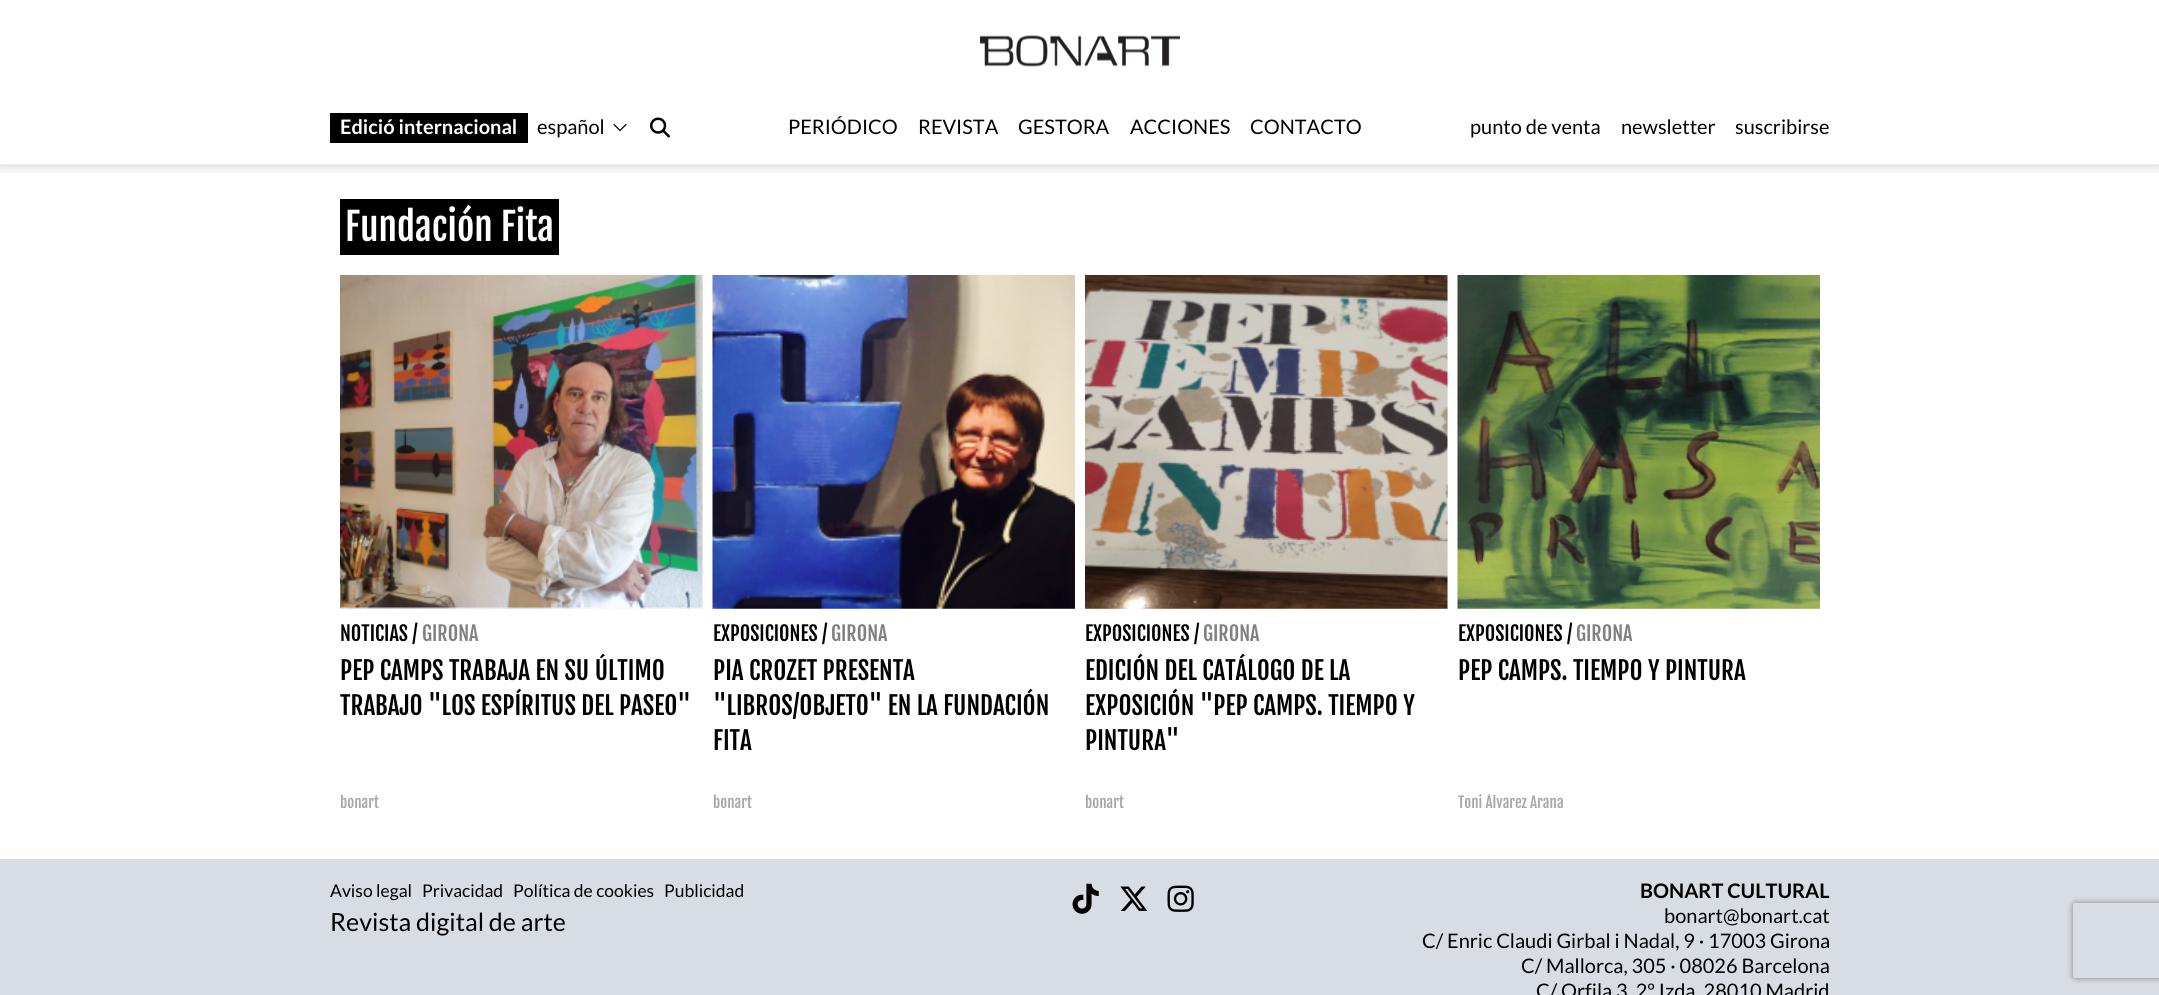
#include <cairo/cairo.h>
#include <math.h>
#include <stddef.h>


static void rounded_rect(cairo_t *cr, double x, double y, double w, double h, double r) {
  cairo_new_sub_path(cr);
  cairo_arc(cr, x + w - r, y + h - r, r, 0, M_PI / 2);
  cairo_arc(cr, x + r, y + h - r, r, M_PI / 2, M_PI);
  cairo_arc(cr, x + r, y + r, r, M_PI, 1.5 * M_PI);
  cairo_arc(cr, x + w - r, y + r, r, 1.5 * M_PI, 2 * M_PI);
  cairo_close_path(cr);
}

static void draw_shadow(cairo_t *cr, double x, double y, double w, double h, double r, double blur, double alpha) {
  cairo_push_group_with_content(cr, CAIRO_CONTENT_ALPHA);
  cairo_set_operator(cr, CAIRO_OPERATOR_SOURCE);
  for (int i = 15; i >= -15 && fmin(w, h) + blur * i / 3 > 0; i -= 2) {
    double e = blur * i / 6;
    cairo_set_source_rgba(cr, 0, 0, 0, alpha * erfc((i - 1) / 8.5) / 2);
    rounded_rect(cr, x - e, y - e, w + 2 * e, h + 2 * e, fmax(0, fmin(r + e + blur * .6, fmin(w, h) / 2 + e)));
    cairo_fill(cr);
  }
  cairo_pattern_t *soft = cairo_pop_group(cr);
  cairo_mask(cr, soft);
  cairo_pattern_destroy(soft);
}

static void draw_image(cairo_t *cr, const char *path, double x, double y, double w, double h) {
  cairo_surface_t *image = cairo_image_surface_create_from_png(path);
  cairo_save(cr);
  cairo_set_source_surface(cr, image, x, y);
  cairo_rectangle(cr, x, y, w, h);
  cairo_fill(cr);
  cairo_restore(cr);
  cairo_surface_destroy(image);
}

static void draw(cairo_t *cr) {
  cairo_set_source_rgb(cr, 1, 1, 1);
  cairo_paint(cr);
  cairo_save(cr);
  cairo_rectangle(cr, 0, 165, 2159, 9);
  cairo_clip(cr);
  cairo_set_source_rgb(cr, 15 / 255.0, 15 / 255.0, 15 / 255.0);
  draw_shadow(cr, 0, 1, 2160, 165, 0, 6, 0.2);
  cairo_restore(cr);
  cairo_set_source_rgb(cr, 238 / 255.0, 237 / 255.0, 243 / 255.0);
  cairo_rectangle(cr, 0, 164, 2159, 1);
  cairo_fill(cr);
  draw_image(cr, "images/1.png", 980, 35, 200, 32);
  cairo_set_source_rgb(cr, 0, 0, 0);
  cairo_rectangle(cr, 330, 113, 198, 30);
  cairo_fill(cr);
  cairo_new_path(cr);
  cairo_move_to(cr, 626, 124.5);
  cairo_line_to(cr, 620, 130.5);
  cairo_line_to(cr, 614, 124.5);
  cairo_set_line_width(cr, 1.2);
  cairo_set_line_cap(cr, CAIRO_LINE_CAP_ROUND);
  cairo_set_line_join(cr, CAIRO_LINE_JOIN_ROUND);
  cairo_stroke(cr);
  draw_image(cr, "images/2.png", 650, 117, 20, 21);
  cairo_rectangle(cr, 340, 199, 5, 56);
  cairo_fill(cr);
  cairo_rectangle(cr, 345, 199, 214, 56);
  cairo_fill(cr);
  cairo_set_source_rgb(cr, 246 / 255.0, 246 / 255.0, 246 / 255.0);
  cairo_rectangle(cr, 340, 275, 363, 334);
  cairo_fill(cr);
  draw_image(cr, "images/3.png", 340, 275, 363, 334);
  draw_image(cr, "images/4.png", 712, 275, 363, 334);
  cairo_rectangle(cr, 1085, 275, 363, 334);
  cairo_fill(cr);
  draw_image(cr, "images/5.png", 1085, 275, 363, 334);
  draw_image(cr, "images/6.png", 1457, 275, 363, 334);
  cairo_set_source_rgb(cr, 216 / 255.0, 220 / 255.0, 227 / 255.0);
  cairo_rectangle(cr, 0, 859, 2159, 136);
  cairo_fill(cr);
  draw_image(cr, "images/7.png", 1072, 883, 27, 31);
  draw_image(cr, "images/8.png", 1120, 886, 28, 25);
  draw_image(cr, "images/9.png", 1167, 885, 27, 27);
  cairo_save(cr);
  cairo_set_fill_rule(cr, CAIRO_FILL_RULE_EVEN_ODD);
  cairo_new_path(cr);
  cairo_move_to(cr, 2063, 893);
  cairo_line_to(cr, 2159, 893);
  cairo_line_to(cr, 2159, 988);
  cairo_line_to(cr, 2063, 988);
  cairo_close_path(cr);
  cairo_move_to(cr, 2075.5, 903);
  cairo_line_to(cr, 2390.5, 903);
  cairo_curve_to(cr, 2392, 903, 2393, 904, 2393, 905.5);
  cairo_line_to(cr, 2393, 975.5);
  cairo_curve_to(cr, 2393, 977, 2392, 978, 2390.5, 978);
  cairo_line_to(cr, 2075.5, 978);
  cairo_curve_to(cr, 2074, 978, 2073, 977, 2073, 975.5);
  cairo_line_to(cr, 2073, 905.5);
  cairo_curve_to(cr, 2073, 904, 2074, 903, 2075.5, 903);
  cairo_close_path(cr);
  cairo_clip(cr);
  cairo_set_source_rgb(cr, 128 / 255.0, 128 / 255.0, 128 / 255.0);
  draw_shadow(cr, 2073, 903, 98, 75, 2.5, 3, 1);
  cairo_restore(cr);
  cairo_select_font_face(cr, "Lato", CAIRO_FONT_SLANT_NORMAL, CAIRO_FONT_WEIGHT_BOLD);
  cairo_set_font_size(cr, 20);
  cairo_set_source_rgb(cr, 1, 1, 1);
  cairo_move_to(cr, 340, 134);
  cairo_show_text(cr, "Edició internacional");
  cairo_select_font_face(cr, "Lato", CAIRO_FONT_SLANT_NORMAL, CAIRO_FONT_WEIGHT_NORMAL);
  cairo_set_source_rgb(cr, 0, 0, 0);
  cairo_move_to(cr, 537, 134);
  cairo_show_text(cr, "español");
  cairo_move_to(cr, 788, 134);
  cairo_show_text(cr, "PERIÓDICO");
  cairo_move_to(cr, 918, 134);
  cairo_show_text(cr, "REVISTA");
  cairo_move_to(cr, 1018, 134);
  cairo_show_text(cr, "GESTORA");
  cairo_move_to(cr, 1130, 134);
  cairo_show_text(cr, "ACCIONES");
  cairo_move_to(cr, 1250, 134);
  cairo_show_text(cr, "CONTACTO");
  cairo_move_to(cr, 1470, 134);
  cairo_show_text(cr, "punto de venta");
  cairo_move_to(cr, 1621, 134);
  cairo_show_text(cr, "newsletter");
  cairo_move_to(cr, 1735, 134);
  cairo_show_text(cr, "suscribirse");
  cairo_select_font_face(cr, "Fjalla One", CAIRO_FONT_SLANT_NORMAL, CAIRO_FONT_WEIGHT_NORMAL);
  cairo_set_font_size(cr, 37.5);
  cairo_set_source_rgb(cr, 1, 1, 1);
  cairo_move_to(cr, 345, 241);
  cairo_show_text(cr, "Fundación Fita");
  cairo_set_font_size(cr, 20);
  cairo_set_source_rgb(cr, 0, 0, 0);
  cairo_move_to(cr, 340, 641);
  cairo_show_text(cr, "NOTICIAS /");
  cairo_set_source_rgb(cr, 128 / 255.0, 128 / 255.0, 128 / 255.0);
  cairo_move_to(cr, 422, 641);
  cairo_show_text(cr, "GIRONA");
  cairo_set_font_size(cr, 25);
  cairo_set_source_rgb(cr, 0, 0, 0);
  cairo_move_to(cr, 340, 680);
  cairo_show_text(cr, "PEP CAMPS TRABAJA EN SU ÚLTIMO");
  cairo_move_to(cr, 340, 715);
  cairo_show_text(cr, "TRABAJO \"LOS ESPÍRITUS DEL PASEO\"");
  cairo_set_font_size(cr, 15);
  cairo_set_source_rgb(cr, 168 / 255.0, 168 / 255.0, 168 / 255.0);
  cairo_move_to(cr, 340, 808);
  cairo_show_text(cr, "bonart");
  cairo_set_font_size(cr, 20);
  cairo_set_source_rgb(cr, 0, 0, 0);
  cairo_move_to(cr, 713, 641);
  cairo_show_text(cr, "EXPOSICIONES /");
  cairo_set_source_rgb(cr, 128 / 255.0, 128 / 255.0, 128 / 255.0);
  cairo_move_to(cr, 831, 641);
  cairo_show_text(cr, "GIRONA");
  cairo_set_font_size(cr, 25);
  cairo_set_source_rgb(cr, 0, 0, 0);
  cairo_move_to(cr, 713, 680);
  cairo_show_text(cr, "PIA CROZET PRESENTA");
  cairo_move_to(cr, 713, 715);
  cairo_show_text(cr, "\"LIBROS/OBJETO\" EN LA FUNDACIÓN");
  cairo_move_to(cr, 713, 750);
  cairo_show_text(cr, "FITA");
  cairo_set_font_size(cr, 15);
  cairo_set_source_rgb(cr, 168 / 255.0, 168 / 255.0, 168 / 255.0);
  cairo_move_to(cr, 713, 808);
  cairo_show_text(cr, "bonart");
  cairo_set_font_size(cr, 20);
  cairo_set_source_rgb(cr, 0, 0, 0);
  cairo_move_to(cr, 1085, 641);
  cairo_show_text(cr, "EXPOSICIONES /");
  cairo_set_source_rgb(cr, 128 / 255.0, 128 / 255.0, 128 / 255.0);
  cairo_move_to(cr, 1203, 641);
  cairo_show_text(cr, "GIRONA");
  cairo_set_font_size(cr, 25);
  cairo_set_source_rgb(cr, 0, 0, 0);
  cairo_move_to(cr, 1085, 680);
  cairo_show_text(cr, "EDICIÓN DEL CATÁLOGO DE LA");
  cairo_move_to(cr, 1085, 715);
  cairo_show_text(cr, "EXPOSICIÓN \"PEP CAMPS. TIEMPO Y");
  cairo_move_to(cr, 1085, 750);
  cairo_show_text(cr, "PINTURA\"");
  cairo_set_font_size(cr, 15);
  cairo_set_source_rgb(cr, 168 / 255.0, 168 / 255.0, 168 / 255.0);
  cairo_move_to(cr, 1085, 808);
  cairo_show_text(cr, "bonart");
  cairo_set_font_size(cr, 20);
  cairo_set_source_rgb(cr, 0, 0, 0);
  cairo_move_to(cr, 1458, 641);
  cairo_show_text(cr, "EXPOSICIONES /");
  cairo_set_source_rgb(cr, 128 / 255.0, 128 / 255.0, 128 / 255.0);
  cairo_move_to(cr, 1576, 641);
  cairo_show_text(cr, "GIRONA");
  cairo_set_font_size(cr, 25);
  cairo_set_source_rgb(cr, 0, 0, 0);
  cairo_move_to(cr, 1458, 680);
  cairo_show_text(cr, "PEP CAMPS. TIEMPO Y PINTURA");
  cairo_save(cr);
  cairo_rectangle(cr, 1458, 794, 362, 20);
  cairo_clip(cr);
  cairo_set_font_size(cr, 15);
  cairo_set_source_rgb(cr, 168 / 255.0, 168 / 255.0, 168 / 255.0);
  cairo_move_to(cr, 1458, 808);
  cairo_show_text(cr, "Toni Álvarez Arana");
  cairo_restore(cr);
  cairo_select_font_face(cr, "Lato", CAIRO_FONT_SLANT_NORMAL, CAIRO_FONT_WEIGHT_NORMAL);
  cairo_set_font_size(cr, 17.5);
  cairo_move_to(cr, 330, 897);
  cairo_show_text(cr, "Aviso legal");
  cairo_move_to(cr, 422, 897);
  cairo_show_text(cr, "Privacidad");
  cairo_move_to(cr, 513, 897);
  cairo_show_text(cr, "Política de cookies");
  cairo_move_to(cr, 664, 897);
  cairo_show_text(cr, "Publicidad");
  cairo_set_font_size(cr, 25);
  cairo_move_to(cr, 330, 931);
  cairo_show_text(cr, "Revista digital de arte");
  cairo_select_font_face(cr, "Lato", CAIRO_FONT_SLANT_NORMAL, CAIRO_FONT_WEIGHT_BOLD);
  cairo_set_font_size(cr, 20);
  cairo_move_to(cr, 1640, 898);
  cairo_show_text(cr, "BONART CULTURAL");
  cairo_select_font_face(cr, "Lato", CAIRO_FONT_SLANT_NORMAL, CAIRO_FONT_WEIGHT_NORMAL);
  cairo_move_to(cr, 1664, 923);
  cairo_show_text(cr, "bonart@bonart.cat");
  cairo_move_to(cr, 1422, 948);
  cairo_show_text(cr, "C/ Enric Claudi Girbal i Nadal, 9 · 17003 Girona");
  cairo_move_to(cr, 1521, 973);
  cairo_show_text(cr, "C/ Mallorca, 305 · 08026 Barcelona");
  cairo_move_to(cr, 1536, 998);
  cairo_show_text(cr, "C/ Orfila 3, 2º Izda, 28010 Madrid");
}

int main(void) {
  cairo_surface_t *surface = cairo_image_surface_create(CAIRO_FORMAT_RGB24, 2159, 995);
  cairo_t *cr = cairo_create(surface);
  cairo_font_options_t *options = cairo_font_options_create();
  cairo_font_options_set_hint_metrics(options, CAIRO_HINT_METRICS_OFF);
  cairo_font_options_set_hint_style(options, CAIRO_HINT_STYLE_NONE);
  cairo_set_font_options(cr, options);
  cairo_set_miter_limit(cr, 4);
  draw(cr);
  cairo_surface_write_to_png(surface, "out.png");
  cairo_font_options_destroy(options);
  cairo_destroy(cr);
  cairo_surface_destroy(surface);
  return 0;
}
